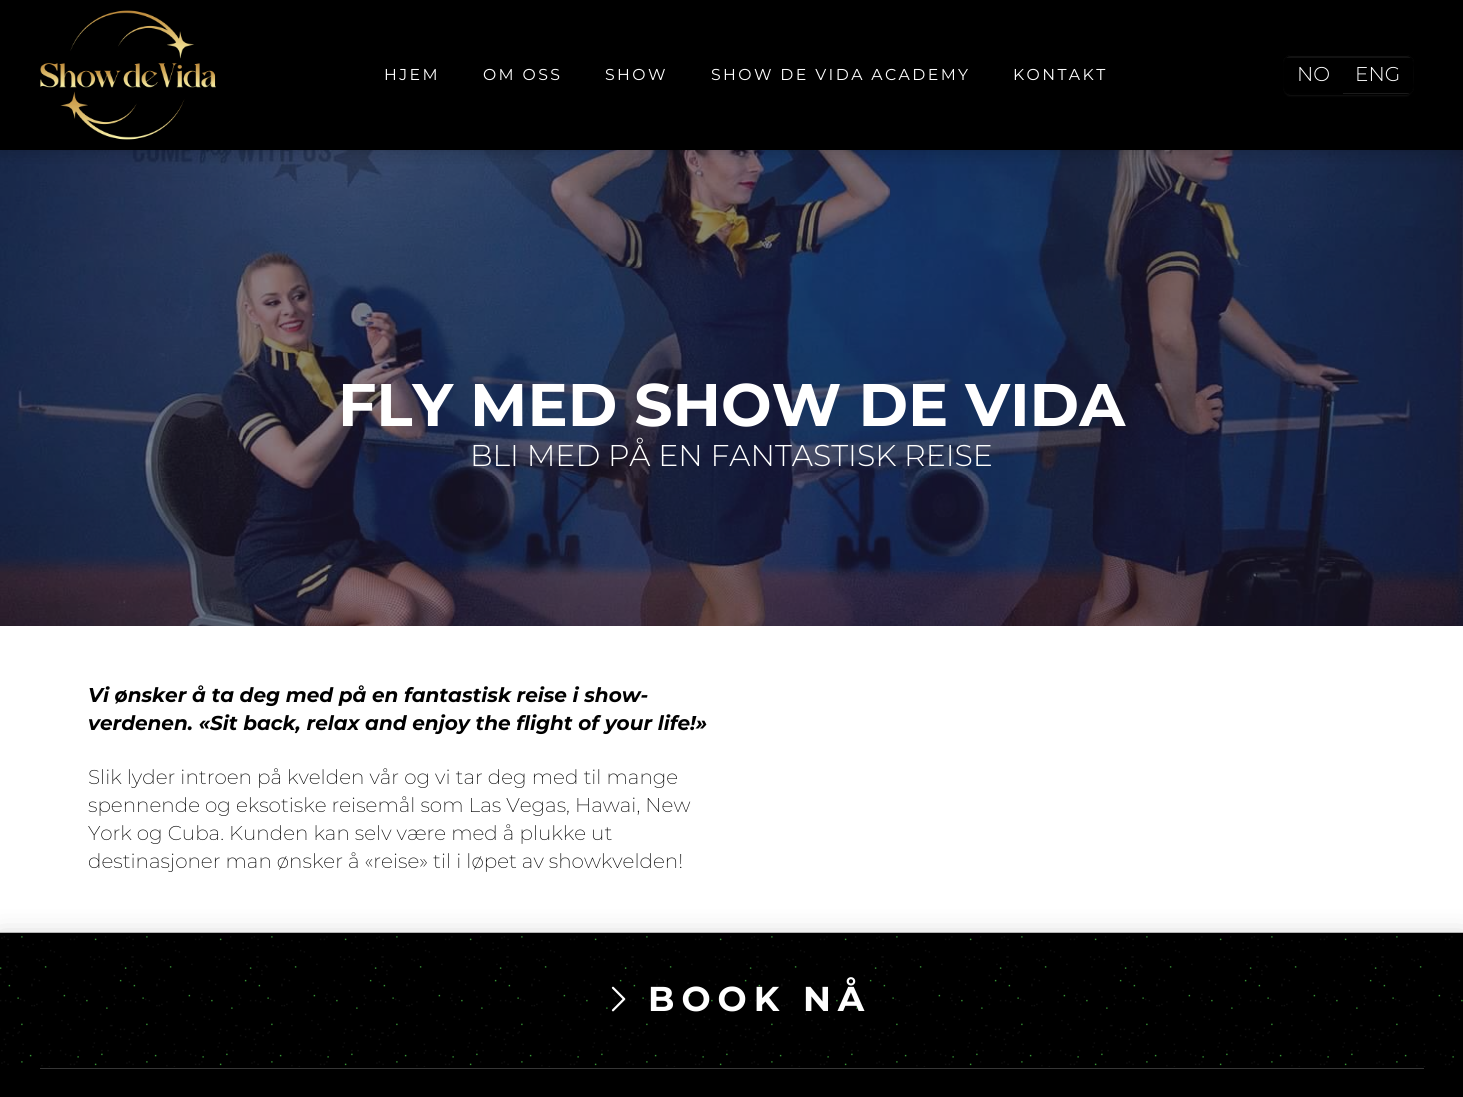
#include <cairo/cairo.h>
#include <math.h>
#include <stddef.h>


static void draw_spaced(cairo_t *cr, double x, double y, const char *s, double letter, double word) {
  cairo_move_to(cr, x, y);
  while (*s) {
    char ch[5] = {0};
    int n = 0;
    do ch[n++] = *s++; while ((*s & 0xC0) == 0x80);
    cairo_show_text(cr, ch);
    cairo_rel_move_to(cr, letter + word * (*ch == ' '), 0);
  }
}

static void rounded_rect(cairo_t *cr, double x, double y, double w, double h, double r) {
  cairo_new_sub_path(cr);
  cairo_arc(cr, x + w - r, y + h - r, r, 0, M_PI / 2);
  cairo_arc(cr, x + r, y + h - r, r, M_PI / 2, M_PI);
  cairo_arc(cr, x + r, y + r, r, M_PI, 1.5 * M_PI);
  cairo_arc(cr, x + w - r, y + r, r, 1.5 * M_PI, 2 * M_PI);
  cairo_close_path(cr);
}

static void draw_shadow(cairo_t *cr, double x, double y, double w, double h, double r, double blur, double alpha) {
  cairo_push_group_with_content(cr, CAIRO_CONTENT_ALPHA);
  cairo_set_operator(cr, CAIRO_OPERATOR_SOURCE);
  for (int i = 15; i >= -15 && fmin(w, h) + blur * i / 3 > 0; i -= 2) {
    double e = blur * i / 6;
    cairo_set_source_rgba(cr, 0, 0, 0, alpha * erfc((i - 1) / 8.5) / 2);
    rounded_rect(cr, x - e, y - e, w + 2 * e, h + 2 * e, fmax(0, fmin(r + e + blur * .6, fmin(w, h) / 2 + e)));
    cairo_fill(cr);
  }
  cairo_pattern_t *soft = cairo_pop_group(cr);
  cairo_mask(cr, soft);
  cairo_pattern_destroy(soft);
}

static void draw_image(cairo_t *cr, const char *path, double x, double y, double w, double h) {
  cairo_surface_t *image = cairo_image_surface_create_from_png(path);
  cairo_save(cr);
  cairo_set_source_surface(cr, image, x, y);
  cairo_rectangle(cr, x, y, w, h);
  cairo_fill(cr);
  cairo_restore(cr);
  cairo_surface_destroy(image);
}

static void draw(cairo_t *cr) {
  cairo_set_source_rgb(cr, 0, 0, 0);
  cairo_paint(cr);
  draw_image(cr, "images/2.png", 0, 150, 1463, 476);
  cairo_save(cr);
  cairo_rectangle(cr, 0, 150, 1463, 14);
  cairo_clip(cr);
  draw_shadow(cr, 0, 0, 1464, 150, 0, 10, 0.25);
  cairo_restore(cr);
  draw_image(cr, "images/1.png", 40, 10, 176, 130);
  cairo_set_source_rgb(cr, 1, 1, 1);
  draw_shadow(cr, 1285, 61, 126, 35, 5, 1, 0.07);
  cairo_set_source_rgb(cr, 18 / 255.0, 18 / 255.0, 18 / 255.0);
  rounded_rect(cr, 1283, 55, 131, 40, 8);
  cairo_fill(cr);
  rounded_rect(cr, 1283.5, 55.5, 130, 39, 7.5);
  cairo_set_source_rgba(cr, 0, 0, 0, 0.95);
  cairo_set_line_width(cr, 1);
  cairo_stroke(cr);
  cairo_set_source_rgb(cr, 28 / 255.0, 28 / 255.0, 28 / 255.0);
  cairo_new_path(cr);
  cairo_move_to(cr, 1288, 94);
  cairo_line_to(cr, 1343, 94);
  cairo_line_to(cr, 1343, 59);
  cairo_line_to(cr, 1342, 59);
  cairo_line_to(cr, 1342, 94);
  cairo_close_path(cr);
  cairo_fill(cr);
  cairo_save(cr);
  rounded_rect(cr, 1284, 56, 129, 38, 6);
  cairo_clip(cr);
  cairo_set_source_rgba(cr, 0, 0, 0, 0.95);
  cairo_rectangle(cr, 1284, 93, 59, 1);
  cairo_fill(cr);
  cairo_set_source_rgb(cr, 0, 0, 0);
  cairo_rectangle(cr, 1284, 58, 59, 35);
  cairo_fill(cr);
  cairo_restore(cr);
  cairo_set_source_rgba(cr, 1, 1, 1, 0.04);
  cairo_set_fill_rule(cr, CAIRO_FILL_RULE_EVEN_ODD);
  cairo_new_path(cr);
  cairo_move_to(cr, 1343, 92);
  cairo_line_to(cr, 1343, 94);
  cairo_line_to(cr, 1407, 94);
  cairo_curve_to(cr, 1409, 94, 1410, 93, 1411, 92);
  cairo_close_path(cr);
  cairo_move_to(cr, 1412, 90);
  cairo_curve_to(cr, 1414, 88, 1414, 62, 1412, 60);
  cairo_close_path(cr);
  cairo_fill(cr);
  cairo_save(cr);
  cairo_set_fill_rule(cr, CAIRO_FILL_RULE_WINDING);
  rounded_rect(cr, 1284, 56, 129, 38, 6);
  cairo_clip(cr);
  cairo_set_source_rgb(cr, 0, 0, 0);
  cairo_rectangle(cr, 1343, 58, 70, 35);
  cairo_fill(cr);
  cairo_restore(cr);
  cairo_set_source_rgb(cr, 1, 1, 1);
  cairo_rectangle(cr, 0, 626, 1463, 307);
  cairo_fill(cr);
  draw_image(cr, "images/3.png", 0, 932, 1463, 135);
  cairo_save(cr);
  cairo_new_path(cr);
  cairo_move_to(cr, 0, 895);
  cairo_line_to(cr, 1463, 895);
  cairo_line_to(cr, 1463, 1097);
  cairo_line_to(cr, 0, 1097);
  cairo_close_path(cr);
  cairo_move_to(cr, 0, 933);
  cairo_line_to(cr, 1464, 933);
  cairo_line_to(cr, 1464, 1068);
  cairo_line_to(cr, 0, 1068);
  cairo_close_path(cr);
  cairo_clip(cr);
  cairo_set_source_rgb(cr, 0, 0, 0);
  draw_shadow(cr, 0, 940, 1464, 135, 0, 14.5, 0.25);
  cairo_restore(cr);
  draw_image(cr, "images/4.png", 611, 986, 15, 26);
  cairo_set_source_rgb(cr, 54 / 255.0, 54 / 255.0, 54 / 255.0);
  cairo_rectangle(cr, 40, 1068, 1384, 1);
  cairo_fill(cr);
  cairo_select_font_face(cr, "Montserrat", CAIRO_FONT_SLANT_NORMAL, CAIRO_FONT_WEIGHT_NORMAL);
  cairo_set_font_size(cr, 15.75);
  cairo_set_source_rgb(cr, 1, 1, 1);
  draw_spaced(cr, 384, 80, "HJEM", 2.4, 0);
  draw_spaced(cr, 483, 80, "OM OSS", 2.4, 0);
  draw_spaced(cr, 605, 80, "SHOW", 2.4, 0);
  draw_spaced(cr, 711, 80, "SHOW DE VIDA ACADEMY", 2.4, 0);
  draw_spaced(cr, 1013, 80, "KONTAKT", 2.4, 0);
  cairo_select_font_face(cr, "Montserrat Light", CAIRO_FONT_SLANT_NORMAL, CAIRO_FONT_WEIGHT_NORMAL);
  cairo_set_font_size(cr, 20);
  cairo_move_to(cr, 1297, 81);
  cairo_show_text(cr, "NO");
  cairo_move_to(cr, 1355, 81);
  cairo_show_text(cr, "ENG");
  cairo_select_font_face(cr, "Montserrat", CAIRO_FONT_SLANT_NORMAL, CAIRO_FONT_WEIGHT_BOLD);
  cairo_set_font_size(cr, 60);
  cairo_move_to(cr, 338, 426);
  cairo_show_text(cr, "FLY MED SHOW DE VIDA");
  cairo_select_font_face(cr, "Montserrat Light", CAIRO_FONT_SLANT_NORMAL, CAIRO_FONT_WEIGHT_NORMAL);
  cairo_set_font_size(cr, 30);
  cairo_move_to(cr, 470, 466);
  cairo_show_text(cr, "BLI MED PÅ EN FANTASTISK REISE");
  cairo_select_font_face(cr, "Montserrat", CAIRO_FONT_SLANT_ITALIC, CAIRO_FONT_WEIGHT_BOLD);
  cairo_set_font_size(cr, 20);
  cairo_set_source_rgb(cr, 0, 0, 0);
  cairo_move_to(cr, 88, 702);
  cairo_show_text(cr, "Vi ønsker å ta deg med på en fantastisk reise i show-");
  cairo_move_to(cr, 88, 730);
  cairo_show_text(cr, "verdenen. «Sit back, relax and enjoy the flight of your life!»");
  cairo_select_font_face(cr, "Montserrat ExtraLight", CAIRO_FONT_SLANT_NORMAL, CAIRO_FONT_WEIGHT_NORMAL);
  cairo_move_to(cr, 88, 784);
  cairo_show_text(cr, "Slik lyder introen på kvelden vår og vi tar deg med til mange");
  cairo_move_to(cr, 88, 812);
  cairo_show_text(cr, "spennende og eksotiske reisemål som Las Vegas, Hawai, New");
  cairo_move_to(cr, 88, 840);
  cairo_show_text(cr, "York og Cuba. Kunden kan selv være med å plukke ut");
  cairo_move_to(cr, 88, 868);
  cairo_show_text(cr, "destinasjoner man ønsker å «reise» til i løpet av showkvelden!");
  cairo_select_font_face(cr, "Montserrat", CAIRO_FONT_SLANT_NORMAL, CAIRO_FONT_WEIGHT_BOLD);
  cairo_set_font_size(cr, 34.5);
  cairo_set_source_rgb(cr, 1, 1, 1);
  draw_spaced(cr, 648, 1011, "BOOK NÅ", 7, 0);
}

int main(void) {
  cairo_surface_t *surface = cairo_image_surface_create(CAIRO_FORMAT_RGB24, 1463, 1097);
  cairo_t *cr = cairo_create(surface);
  cairo_font_options_t *options = cairo_font_options_create();
  cairo_font_options_set_hint_metrics(options, CAIRO_HINT_METRICS_OFF);
  cairo_font_options_set_hint_style(options, CAIRO_HINT_STYLE_NONE);
  cairo_set_font_options(cr, options);
  cairo_set_miter_limit(cr, 4);
  draw(cr);
  cairo_surface_write_to_png(surface, "out.png");
  cairo_font_options_destroy(options);
  cairo_destroy(cr);
  cairo_surface_destroy(surface);
  return 0;
}
